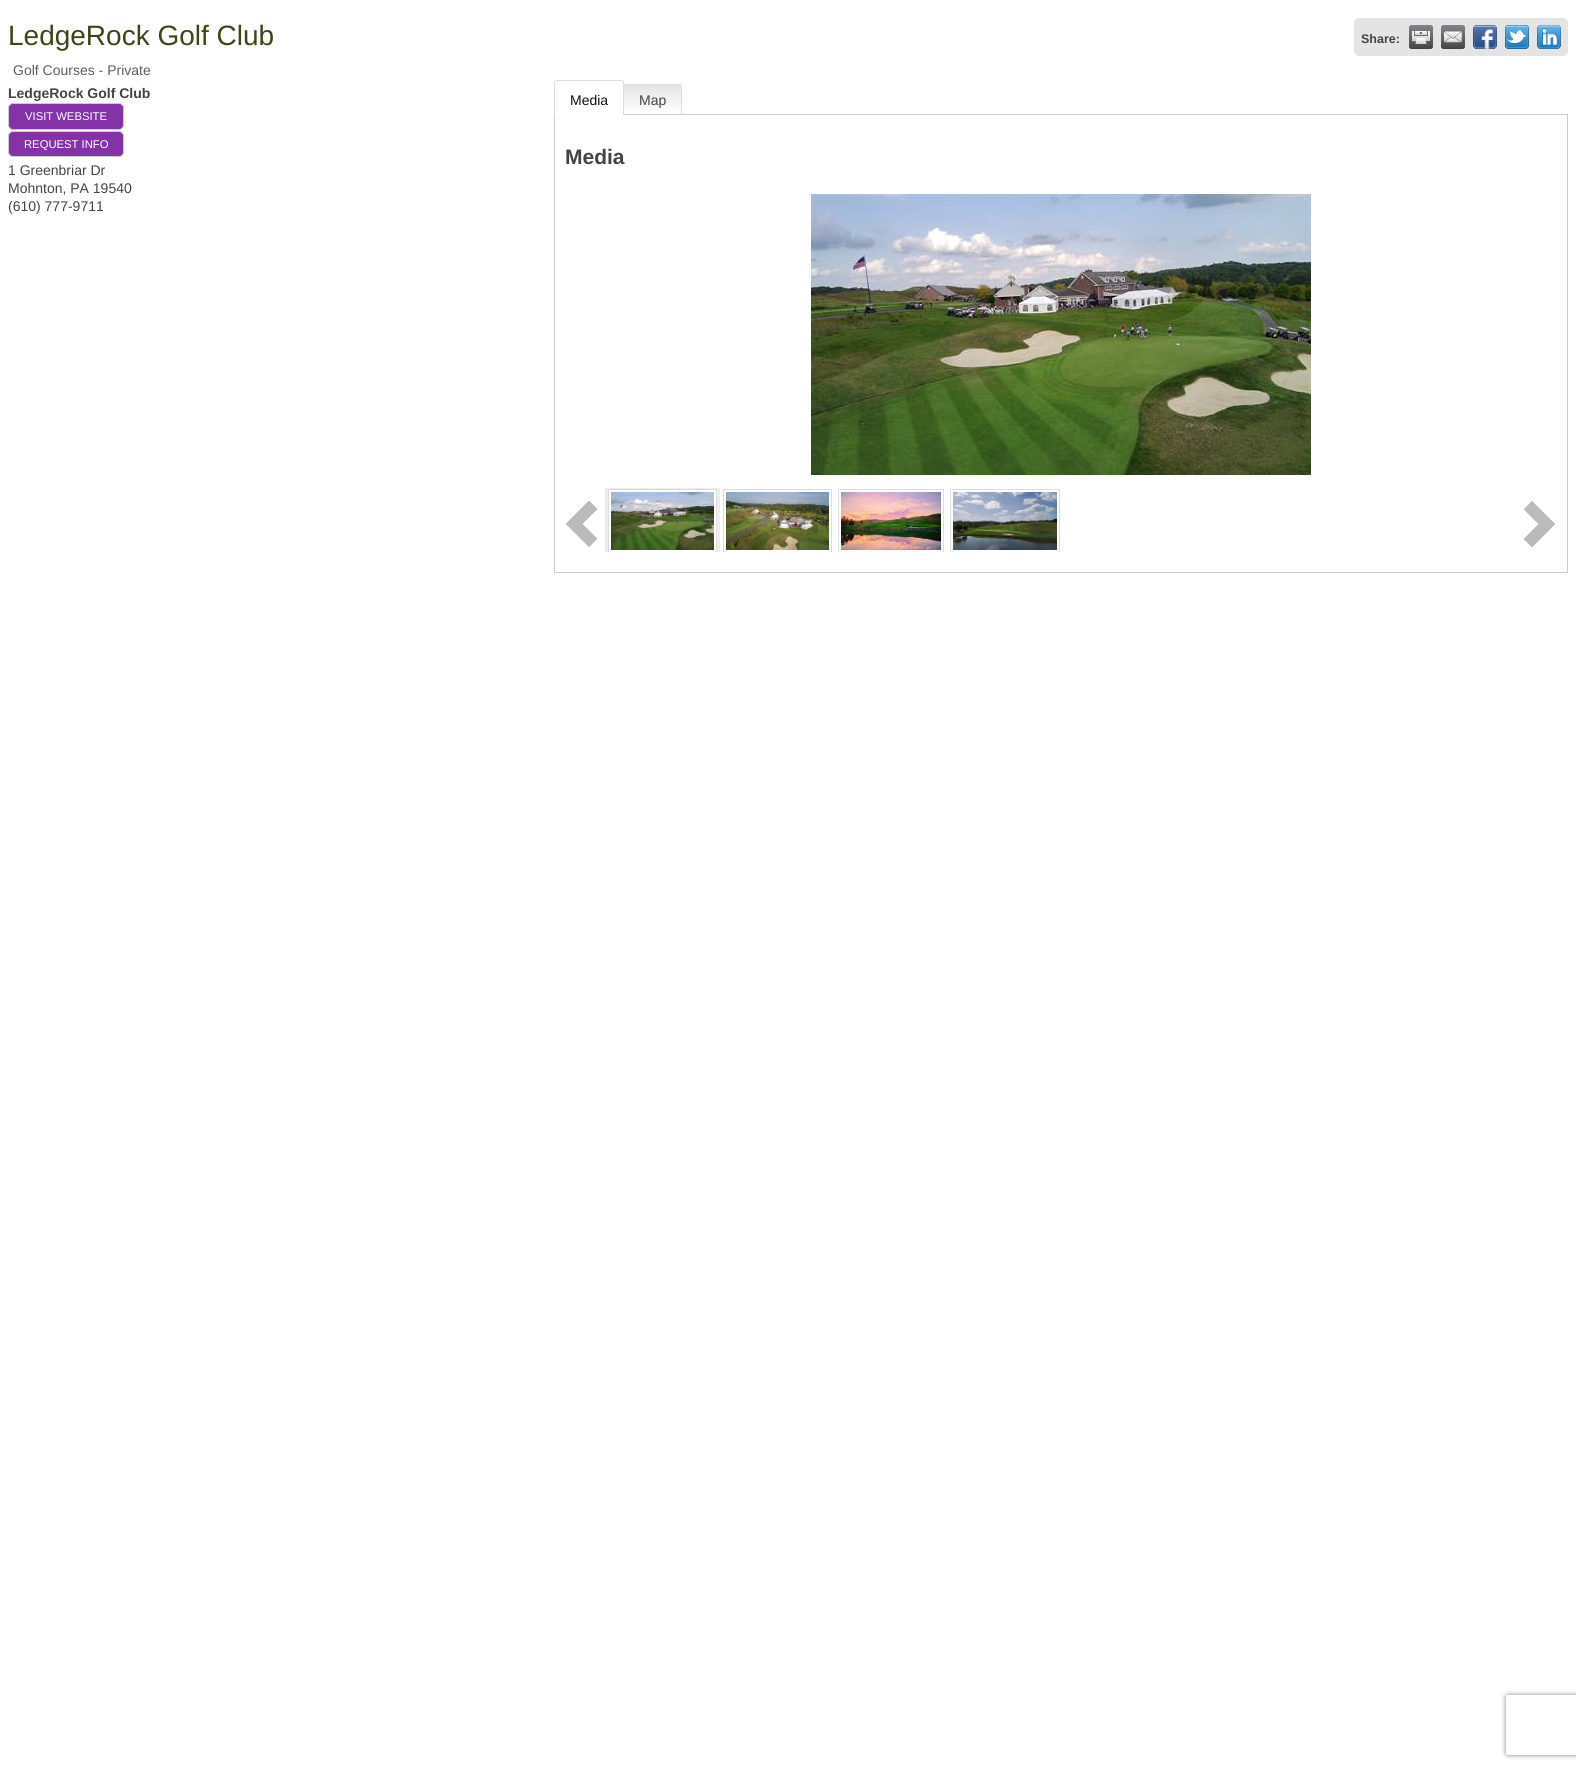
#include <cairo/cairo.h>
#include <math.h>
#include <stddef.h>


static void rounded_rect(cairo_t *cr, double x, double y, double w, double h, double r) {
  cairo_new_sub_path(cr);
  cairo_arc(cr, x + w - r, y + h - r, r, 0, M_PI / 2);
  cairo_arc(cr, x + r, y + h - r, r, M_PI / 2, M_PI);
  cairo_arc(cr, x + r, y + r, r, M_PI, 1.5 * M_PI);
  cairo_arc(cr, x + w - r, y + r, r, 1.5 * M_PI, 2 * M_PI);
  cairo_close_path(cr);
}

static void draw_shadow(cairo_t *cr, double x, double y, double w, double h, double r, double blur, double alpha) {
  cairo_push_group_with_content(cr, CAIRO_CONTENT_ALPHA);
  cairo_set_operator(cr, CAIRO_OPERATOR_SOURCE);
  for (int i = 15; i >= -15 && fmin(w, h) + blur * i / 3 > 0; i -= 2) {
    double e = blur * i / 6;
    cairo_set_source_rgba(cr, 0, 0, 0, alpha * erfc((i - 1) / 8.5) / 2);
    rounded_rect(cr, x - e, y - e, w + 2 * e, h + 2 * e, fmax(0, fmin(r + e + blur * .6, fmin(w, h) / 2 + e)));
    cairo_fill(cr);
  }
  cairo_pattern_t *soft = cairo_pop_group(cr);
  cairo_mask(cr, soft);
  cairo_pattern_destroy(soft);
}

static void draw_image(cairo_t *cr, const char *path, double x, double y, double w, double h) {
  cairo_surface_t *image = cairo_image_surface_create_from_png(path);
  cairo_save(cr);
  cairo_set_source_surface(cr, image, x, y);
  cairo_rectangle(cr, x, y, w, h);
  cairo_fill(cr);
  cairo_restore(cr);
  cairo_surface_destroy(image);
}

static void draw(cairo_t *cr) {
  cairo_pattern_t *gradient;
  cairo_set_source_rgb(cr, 1, 1, 1);
  cairo_paint(cr);
  cairo_set_source_rgb(cr, 228 / 255.0, 228 / 255.0, 228 / 255.0);
  rounded_rect(cr, 1354, 18, 214, 38, 5);
  cairo_fill(cr);
  draw_image(cr, "images/1.png", 1409, 25, 24, 24);
  draw_image(cr, "images/2.png", 1441, 25, 24, 24);
  draw_image(cr, "images/3.png", 1473, 25, 24, 24);
  draw_image(cr, "images/4.png", 1505, 25, 24, 24);
  draw_image(cr, "images/5.png", 1537, 25, 24, 24);
  cairo_set_source_rgb(cr, 131 / 255.0, 50 / 255.0, 167 / 255.0);
  rounded_rect(cr, 8.5, 103.5, 115, 26, 4.5);
  cairo_fill_preserve(cr);
  cairo_set_source_rgb(cr, 204 / 255.0, 204 / 255.0, 204 / 255.0);
  cairo_set_line_width(cr, 1);
  cairo_stroke(cr);
  cairo_set_source_rgb(cr, 131 / 255.0, 50 / 255.0, 167 / 255.0);
  rounded_rect(cr, 8.5, 131.5, 115, 25, 4.5);
  cairo_fill_preserve(cr);
  cairo_set_source_rgb(cr, 204 / 255.0, 204 / 255.0, 204 / 255.0);
  cairo_stroke(cr);
  cairo_rectangle(cr, 554.5, 114.5, 1013, 458);
  cairo_stroke(cr);
  cairo_set_source_rgb(cr, 1, 1, 1);
  cairo_new_path(cr);
  cairo_move_to(cr, 556, 81);
  cairo_line_to(cr, 622, 81);
  cairo_curve_to(cr, 622.5, 81, 623, 81.5, 623, 82);
  cairo_line_to(cr, 623, 115);
  cairo_line_to(cr, 555, 115);
  cairo_line_to(cr, 555, 82);
  cairo_curve_to(cr, 555, 81.5, 555.5, 81, 556, 81);
  cairo_close_path(cr);
  cairo_fill(cr);
  cairo_set_source_rgb(cr, 221 / 255.0, 221 / 255.0, 221 / 255.0);
  cairo_rectangle(cr, 555, 80, 68, 1);
  cairo_fill(cr);
  cairo_rectangle(cr, 623, 81, 1, 34);
  cairo_fill(cr);
  cairo_rectangle(cr, 554, 81, 1, 34);
  cairo_fill(cr);
  gradient = cairo_pattern_create_linear(653, 85, 653, 114);
  cairo_pattern_add_color_stop_rgba(gradient, 0, 228 / 255.0, 228 / 255.0, 228 / 255.0, 1);
  cairo_pattern_add_color_stop_rgba(gradient, 1, 1, 1, 1, 1);
  cairo_set_source(cr, gradient);
  cairo_pattern_destroy(gradient);
  cairo_new_path(cr);
  cairo_move_to(cr, 624, 85);
  cairo_line_to(cr, 680, 85);
  cairo_curve_to(cr, 680.5, 85, 681, 85.5, 681, 86);
  cairo_line_to(cr, 681, 114);
  cairo_line_to(cr, 624, 114);
  cairo_close_path(cr);
  cairo_fill(cr);
  cairo_set_source_rgb(cr, 221 / 255.0, 221 / 255.0, 221 / 255.0);
  cairo_rectangle(cr, 624, 84, 57, 1);
  cairo_fill(cr);
  cairo_rectangle(cr, 681, 85, 1, 29);
  cairo_fill(cr);
  draw_image(cr, "images/6.png", 811, 194, 500, 281);
  draw_image(cr, "images/7.png", 566, 501, 31, 46);
  cairo_set_source_rgb(cr, 237 / 255.0, 237 / 255.0, 237 / 255.0);
  cairo_rectangle(cr, 605, 488, 115, 64);
  cairo_fill(cr);
  cairo_set_source_rgb(cr, 1, 1, 1);
  cairo_rectangle(cr, 609, 490, 107, 62);
  cairo_fill(cr);
  cairo_save(cr);
  cairo_rectangle(cr, 605, 488, 115, 64);
  cairo_clip(cr);
  cairo_rectangle(cr, 608.5, 489.5, 108, 63);
  cairo_set_source_rgb(cr, 221 / 255.0, 221 / 255.0, 221 / 255.0);
  cairo_stroke(cr);
  cairo_restore(cr);
  draw_image(cr, "images/8.png", 611, 492, 103, 58);
  cairo_save(cr);
  cairo_rectangle(cr, 720, 488, 115, 64);
  cairo_clip(cr);
  cairo_rectangle(cr, 723.5, 489.5, 108, 63);
  cairo_set_source_rgb(cr, 221 / 255.0, 221 / 255.0, 221 / 255.0);
  cairo_stroke(cr);
  cairo_restore(cr);
  draw_image(cr, "images/9.png", 726, 492, 103, 58);
  cairo_save(cr);
  cairo_rectangle(cr, 835, 488, 112, 64);
  cairo_clip(cr);
  cairo_rectangle(cr, 838.5, 489.5, 105, 63);
  cairo_set_source_rgb(cr, 221 / 255.0, 221 / 255.0, 221 / 255.0);
  cairo_stroke(cr);
  cairo_restore(cr);
  draw_image(cr, "images/10.png", 841, 492, 100, 58);
  cairo_save(cr);
  cairo_rectangle(cr, 947, 488, 116, 64);
  cairo_clip(cr);
  cairo_rectangle(cr, 950.5, 489.5, 109, 63);
  cairo_set_source_rgb(cr, 221 / 255.0, 221 / 255.0, 221 / 255.0);
  cairo_stroke(cr);
  cairo_restore(cr);
  draw_image(cr, "images/11.png", 953, 492, 104, 58);
  draw_image(cr, "images/12.png", 1524, 501, 31, 46);
  cairo_save(cr);
  cairo_set_fill_rule(cr, CAIRO_FILL_RULE_EVEN_ODD);
  cairo_new_path(cr);
  cairo_move_to(cr, 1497, 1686);
  cairo_line_to(cr, 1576, 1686);
  cairo_line_to(cr, 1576, 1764);
  cairo_line_to(cr, 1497, 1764);
  cairo_close_path(cr);
  cairo_move_to(cr, 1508, 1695);
  cairo_line_to(cr, 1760, 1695);
  cairo_curve_to(cr, 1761, 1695, 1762, 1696, 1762, 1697);
  cairo_line_to(cr, 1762, 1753);
  cairo_curve_to(cr, 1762, 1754, 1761, 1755, 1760, 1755);
  cairo_line_to(cr, 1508, 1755);
  cairo_curve_to(cr, 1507, 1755, 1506, 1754, 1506, 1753);
  cairo_line_to(cr, 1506, 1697);
  cairo_curve_to(cr, 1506, 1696, 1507, 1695, 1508, 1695);
  cairo_close_path(cr);
  cairo_clip(cr);
  cairo_set_source_rgb(cr, 128 / 255.0, 128 / 255.0, 128 / 255.0);
  draw_shadow(cr, 1506, 1695, 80, 60, 2, 2.5, 1);
  cairo_restore(cr);
  cairo_select_font_face(cr, "Liberation Sans", CAIRO_FONT_SLANT_NORMAL, CAIRO_FONT_WEIGHT_NORMAL);
  cairo_set_font_size(cr, 28);
  cairo_set_source_rgb(cr, 65 / 255.0, 68 / 255.0, 22 / 255.0);
  cairo_move_to(cr, 8, 45);
  cairo_show_text(cr, "LedgeRock Golf Club");
  cairo_select_font_face(cr, "Liberation Sans", CAIRO_FONT_SLANT_NORMAL, CAIRO_FONT_WEIGHT_BOLD);
  cairo_set_font_size(cr, 12.5);
  cairo_set_source_rgb(cr, 68 / 255.0, 68 / 255.0, 68 / 255.0);
  cairo_move_to(cr, 1361, 43);
  cairo_show_text(cr, "Share:");
  cairo_select_font_face(cr, "Liberation Sans", CAIRO_FONT_SLANT_NORMAL, CAIRO_FONT_WEIGHT_NORMAL);
  cairo_set_font_size(cr, 14);
  cairo_set_source_rgb(cr, 94 / 255.0, 94 / 255.0, 94 / 255.0);
  cairo_move_to(cr, 13, 75);
  cairo_show_text(cr, "Golf Courses - Private");
  cairo_select_font_face(cr, "Liberation Sans", CAIRO_FONT_SLANT_NORMAL, CAIRO_FONT_WEIGHT_BOLD);
  cairo_set_source_rgb(cr, 68 / 255.0, 68 / 255.0, 68 / 255.0);
  cairo_move_to(cr, 8, 98);
  cairo_show_text(cr, "LedgeRock Golf Club");
  cairo_select_font_face(cr, "Liberation Sans", CAIRO_FONT_SLANT_NORMAL, CAIRO_FONT_WEIGHT_NORMAL);
  cairo_set_font_size(cr, 11.25);
  cairo_set_source_rgb(cr, 1, 1, 1);
  cairo_move_to(cr, 25, 120);
  cairo_show_text(cr, "VISIT WEBSITE");
  cairo_move_to(cr, 24, 148);
  cairo_show_text(cr, "REQUEST INFO");
  cairo_set_font_size(cr, 14);
  cairo_set_source_rgb(cr, 68 / 255.0, 68 / 255.0, 68 / 255.0);
  cairo_move_to(cr, 8, 175);
  cairo_show_text(cr, "1 Greenbriar Dr");
  cairo_move_to(cr, 8, 193);
  cairo_show_text(cr, "Mohnton, PA 19540");
  cairo_move_to(cr, 8, 211);
  cairo_show_text(cr, "(610) 777-9711");
  cairo_set_source_rgb(cr, 17 / 255.0, 17 / 255.0, 17 / 255.0);
  cairo_move_to(cr, 570, 105);
  cairo_show_text(cr, "Media");
  cairo_set_source_rgb(cr, 68 / 255.0, 68 / 255.0, 68 / 255.0);
  cairo_move_to(cr, 639, 105);
  cairo_show_text(cr, "Map");
  cairo_select_font_face(cr, "Liberation Sans", CAIRO_FONT_SLANT_NORMAL, CAIRO_FONT_WEIGHT_BOLD);
  cairo_set_font_size(cr, 21);
  cairo_move_to(cr, 565, 164);
  cairo_show_text(cr, "Media");
}

int main(void) {
  cairo_surface_t *surface = cairo_image_surface_create(CAIRO_FORMAT_RGB24, 1576, 1769);
  cairo_t *cr = cairo_create(surface);
  cairo_font_options_t *options = cairo_font_options_create();
  cairo_font_options_set_hint_metrics(options, CAIRO_HINT_METRICS_OFF);
  cairo_font_options_set_hint_style(options, CAIRO_HINT_STYLE_NONE);
  cairo_set_font_options(cr, options);
  cairo_set_miter_limit(cr, 4);
  draw(cr);
  cairo_surface_write_to_png(surface, "out.png");
  cairo_font_options_destroy(options);
  cairo_destroy(cr);
  cairo_surface_destroy(surface);
  return 0;
}
